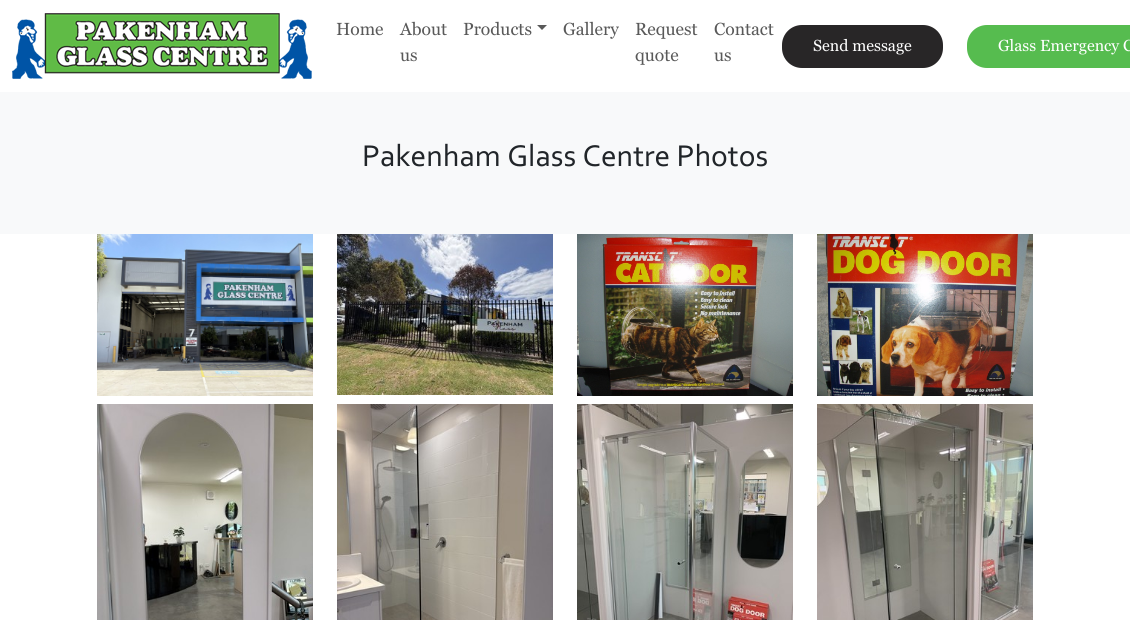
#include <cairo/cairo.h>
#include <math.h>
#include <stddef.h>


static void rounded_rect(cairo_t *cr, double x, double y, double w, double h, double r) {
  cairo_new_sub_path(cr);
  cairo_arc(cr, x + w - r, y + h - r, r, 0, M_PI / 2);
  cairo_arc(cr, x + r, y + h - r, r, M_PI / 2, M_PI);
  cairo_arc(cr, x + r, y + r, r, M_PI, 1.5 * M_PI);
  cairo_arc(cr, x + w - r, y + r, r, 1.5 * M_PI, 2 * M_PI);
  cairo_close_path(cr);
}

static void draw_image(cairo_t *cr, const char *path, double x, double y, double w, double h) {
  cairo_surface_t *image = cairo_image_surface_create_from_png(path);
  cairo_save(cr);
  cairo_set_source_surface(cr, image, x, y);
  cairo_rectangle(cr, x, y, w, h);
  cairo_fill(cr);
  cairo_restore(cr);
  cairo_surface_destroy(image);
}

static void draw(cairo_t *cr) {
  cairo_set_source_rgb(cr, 1, 1, 1);
  cairo_paint(cr);
  draw_image(cr, "images/1.png", 12, 13, 300, 66);
  cairo_set_source_rgb(cr, 89 / 255.0, 89 / 255.0, 89 / 255.0);
  cairo_new_path(cr);
  cairo_move_to(cr, 537, 25);
  cairo_line_to(cr, 547, 25);
  cairo_line_to(cr, 542, 30);
  cairo_close_path(cr);
  cairo_fill(cr);
  cairo_set_source_rgb(cr, 40 / 255.0, 38 / 255.0, 39 / 255.0);
  rounded_rect(cr, 782, 25, 161, 43, 20);
  cairo_fill(cr);
  cairo_set_source_rgb(cr, 86 / 255.0, 188 / 255.0, 79 / 255.0);
  rounded_rect(cr, 967, 25, 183, 43, 20);
  cairo_fill(cr);
  cairo_set_source_rgb(cr, 248 / 255.0, 249 / 255.0, 250 / 255.0);
  cairo_rectangle(cr, 0, 92, 1130, 142);
  cairo_fill(cr);
  draw_image(cr, "images/2.png", 97, 234, 216, 162);
  draw_image(cr, "images/3.png", 337, 234, 216, 161);
  draw_image(cr, "images/4.png", 577, 234, 216, 162);
  draw_image(cr, "images/5.png", 817, 234, 216, 162);
  draw_image(cr, "images/6.png", 97, 404, 216, 216);
  draw_image(cr, "images/7.png", 337, 404, 216, 216);
  draw_image(cr, "images/8.png", 577, 404, 216, 216);
  draw_image(cr, "images/9.png", 817, 404, 216, 216);
  cairo_select_font_face(cr, "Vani", CAIRO_FONT_SLANT_NORMAL, CAIRO_FONT_WEIGHT_NORMAL);
  cairo_set_font_size(cr, 17.5);
  cairo_set_source_rgb(cr, 89 / 255.0, 89 / 255.0, 89 / 255.0);
  cairo_move_to(cr, 336, 35);
  cairo_show_text(cr, "Home");
  cairo_move_to(cr, 400, 35);
  cairo_show_text(cr, "About");
  cairo_move_to(cr, 400, 61);
  cairo_show_text(cr, "us");
  cairo_move_to(cr, 463, 35);
  cairo_show_text(cr, "Products");
  cairo_move_to(cr, 563, 35);
  cairo_show_text(cr, "Gallery");
  cairo_move_to(cr, 635, 35);
  cairo_show_text(cr, "Request");
  cairo_move_to(cr, 635, 61);
  cairo_show_text(cr, "quote");
  cairo_move_to(cr, 714, 35);
  cairo_show_text(cr, "Contact");
  cairo_move_to(cr, 714, 61);
  cairo_show_text(cr, "us");
  cairo_set_font_size(cr, 16);
  cairo_set_source_rgb(cr, 1, 1, 1);
  cairo_move_to(cr, 813, 51);
  cairo_show_text(cr, "Send message");
  cairo_move_to(cr, 998, 51);
  cairo_show_text(cr, "Glass Emergency C");
  cairo_select_font_face(cr, "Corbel", CAIRO_FONT_SLANT_NORMAL, CAIRO_FONT_WEIGHT_NORMAL);
  cairo_set_font_size(cr, 31.4);
  cairo_set_source_rgb(cr, 33 / 255.0, 37 / 255.0, 41 / 255.0);
  cairo_move_to(cr, 362, 166);
  cairo_show_text(cr, "Pakenham Glass Centre Photos");
}

int main(void) {
  cairo_surface_t *surface = cairo_image_surface_create(CAIRO_FORMAT_RGB24, 1130, 620);
  cairo_t *cr = cairo_create(surface);
  cairo_font_options_t *options = cairo_font_options_create();
  cairo_font_options_set_hint_metrics(options, CAIRO_HINT_METRICS_OFF);
  cairo_font_options_set_hint_style(options, CAIRO_HINT_STYLE_NONE);
  cairo_set_font_options(cr, options);
  cairo_set_miter_limit(cr, 4);
  draw(cr);
  cairo_surface_write_to_png(surface, "out.png");
  cairo_font_options_destroy(options);
  cairo_destroy(cr);
  cairo_surface_destroy(surface);
  return 0;
}
